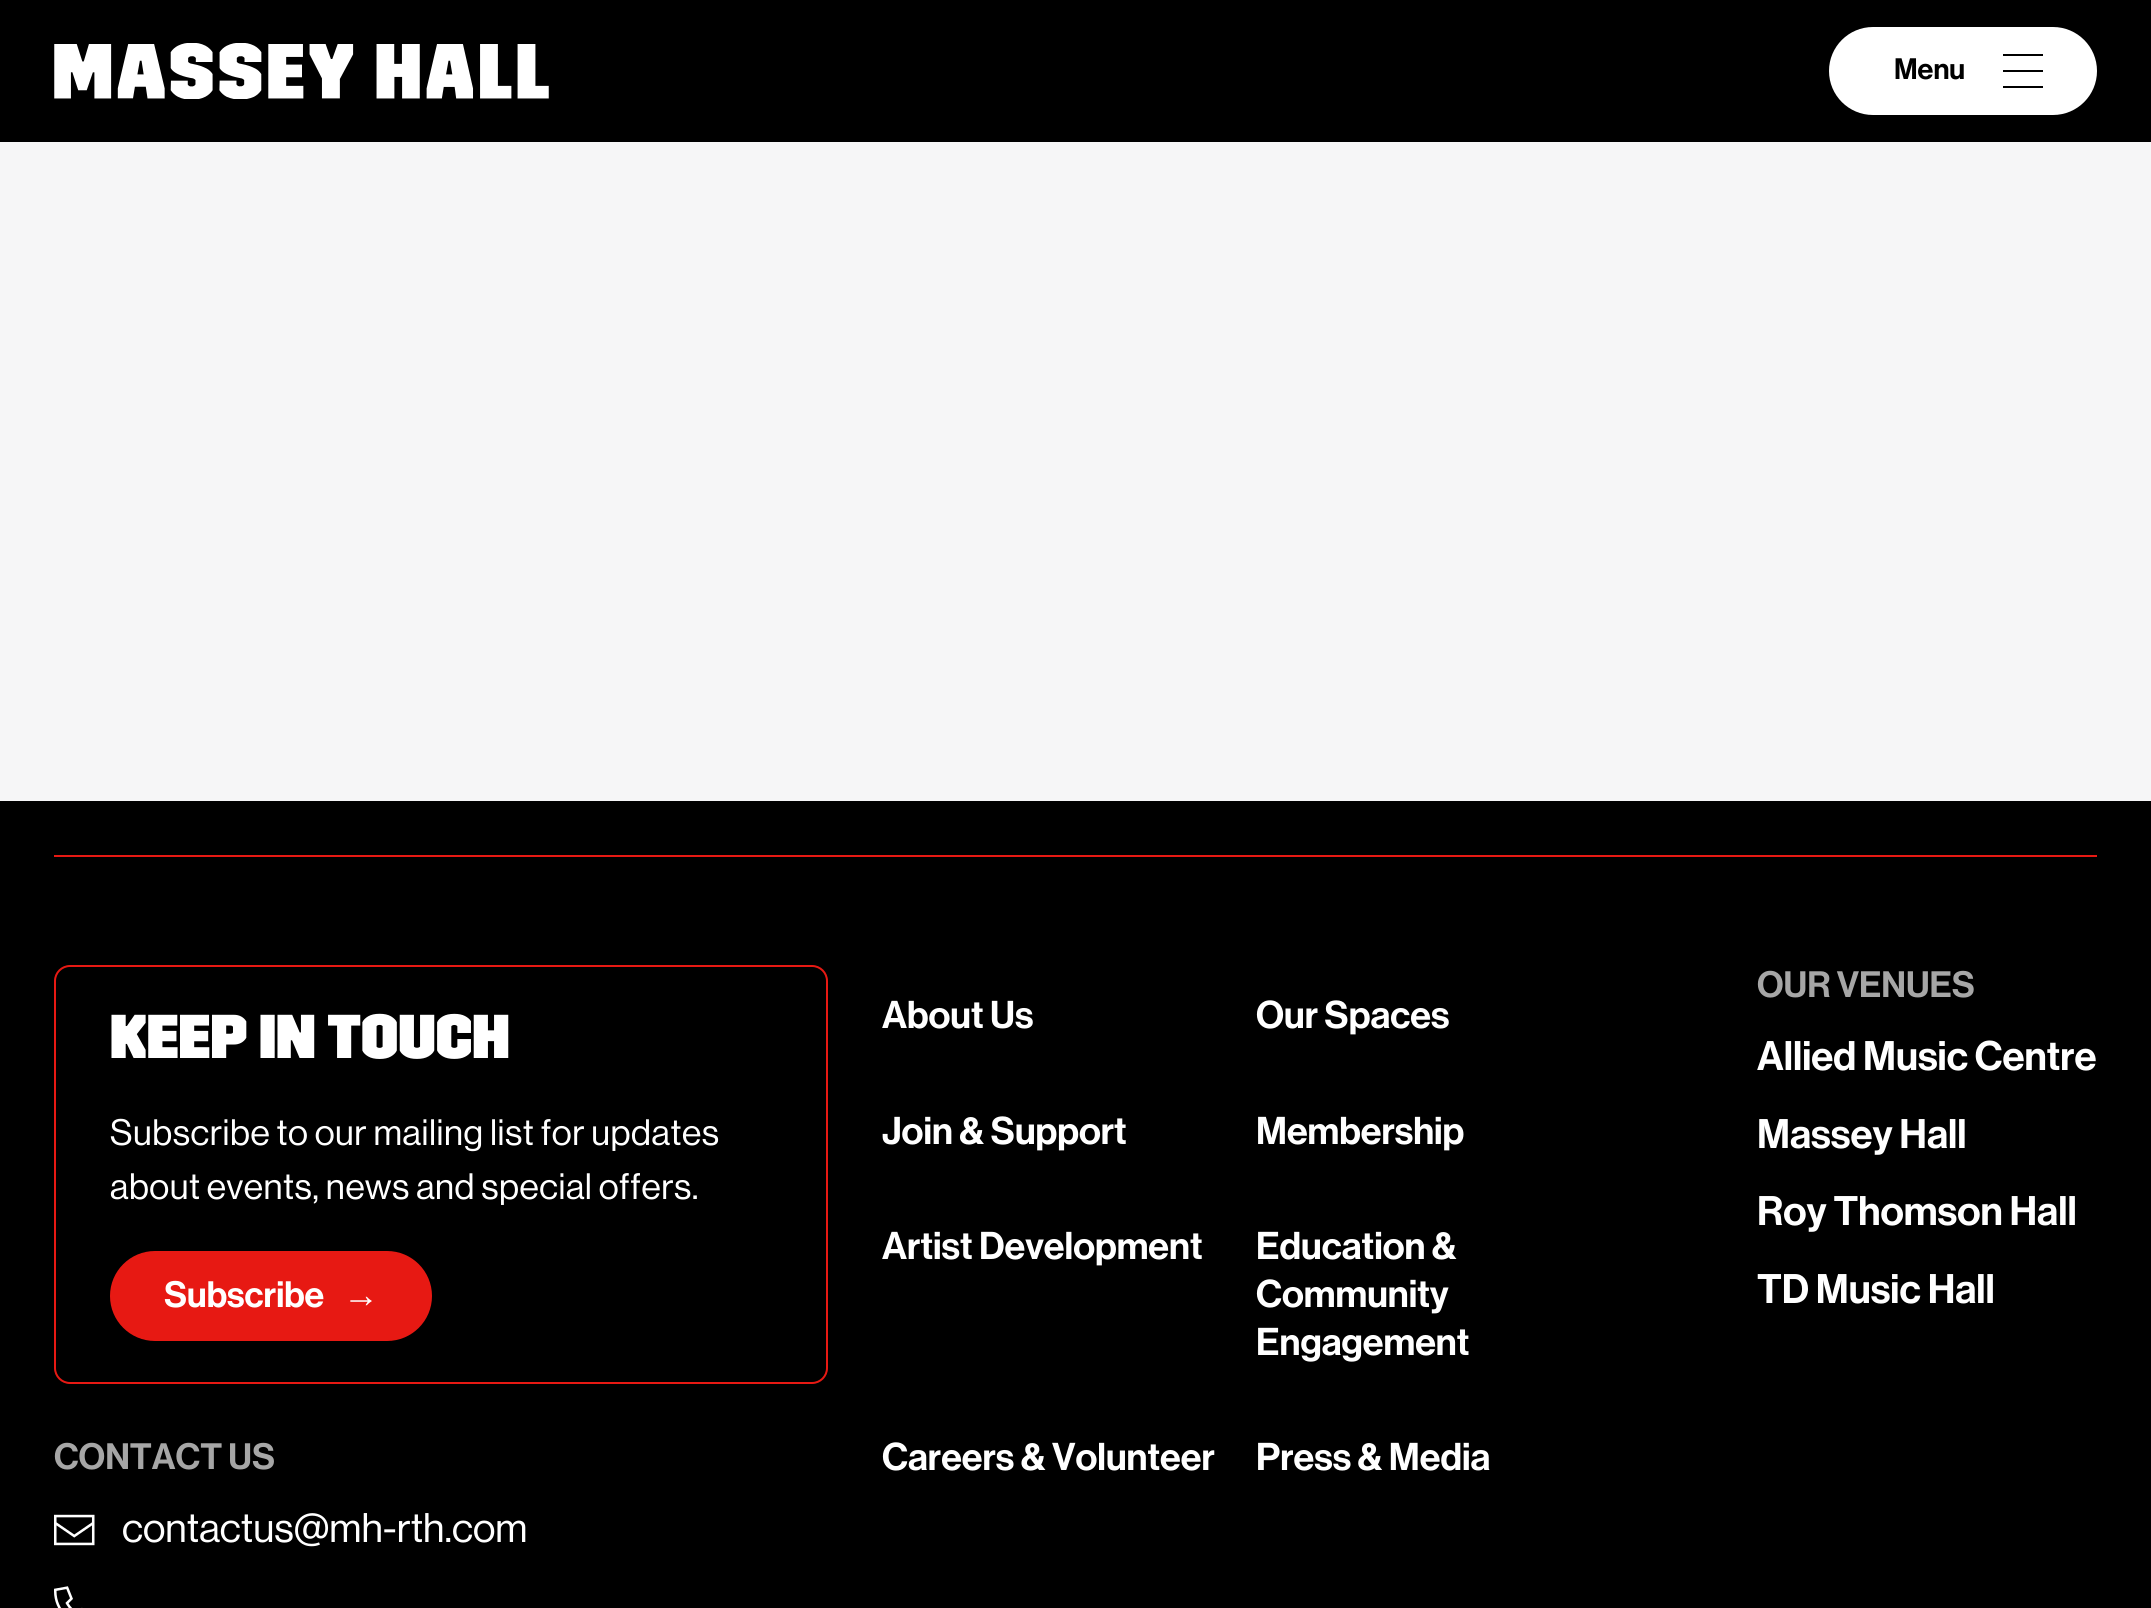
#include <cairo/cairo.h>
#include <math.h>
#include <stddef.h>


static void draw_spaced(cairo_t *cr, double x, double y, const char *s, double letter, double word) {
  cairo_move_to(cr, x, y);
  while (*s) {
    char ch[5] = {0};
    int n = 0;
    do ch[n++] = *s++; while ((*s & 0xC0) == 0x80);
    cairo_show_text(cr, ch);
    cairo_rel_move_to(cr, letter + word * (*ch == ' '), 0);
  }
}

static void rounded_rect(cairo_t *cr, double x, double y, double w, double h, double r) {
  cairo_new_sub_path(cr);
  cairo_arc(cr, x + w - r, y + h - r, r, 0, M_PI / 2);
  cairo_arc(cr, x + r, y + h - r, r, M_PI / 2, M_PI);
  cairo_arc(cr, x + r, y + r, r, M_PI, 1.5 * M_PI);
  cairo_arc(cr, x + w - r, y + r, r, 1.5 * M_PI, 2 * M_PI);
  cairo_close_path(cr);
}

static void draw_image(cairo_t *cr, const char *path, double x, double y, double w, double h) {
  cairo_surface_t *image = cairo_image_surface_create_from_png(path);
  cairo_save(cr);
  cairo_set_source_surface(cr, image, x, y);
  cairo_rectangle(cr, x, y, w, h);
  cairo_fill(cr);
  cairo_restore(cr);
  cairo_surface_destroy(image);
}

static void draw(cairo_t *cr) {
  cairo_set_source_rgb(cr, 246 / 255.0, 246 / 255.0, 247 / 255.0);
  cairo_paint(cr);
  cairo_set_source_rgb(cr, 0, 0, 0);
  cairo_rectangle(cr, 0, 0, 2151, 142);
  cairo_fill(cr);
  draw_image(cr, "images/1.png", 54, 43, 495, 56);
  cairo_set_source_rgb(cr, 1, 1, 1);
  rounded_rect(cr, 1829, 27, 268, 88, 44);
  cairo_fill(cr);
  cairo_set_source_rgb(cr, 0, 0, 0);
  cairo_rectangle(cr, 2003, 54, 40, 2);
  cairo_fill(cr);
  cairo_rectangle(cr, 2003, 70, 40, 2);
  cairo_fill(cr);
  cairo_rectangle(cr, 2003, 86, 40, 2);
  cairo_fill(cr);
  cairo_rectangle(cr, 0, 801, 2151, 807);
  cairo_fill(cr);
  cairo_set_source_rgb(cr, 231 / 255.0, 25 / 255.0, 19 / 255.0);
  cairo_rectangle(cr, 54, 855, 2043, 2);
  cairo_fill(cr);
  rounded_rect(cr, 55, 966, 772, 417, 15);
  cairo_stroke(cr);
  rounded_rect(cr, 110, 1251, 322, 90, 45);
  cairo_fill(cr);
  draw_image(cr, "images/2.png", 54, 1514, 41, 32);
  draw_image(cr, "images/3.png", 54, 1586, 29, 22);
  cairo_select_font_face(cr, "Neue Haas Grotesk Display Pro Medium", CAIRO_FONT_SLANT_NORMAL, CAIRO_FONT_WEIGHT_NORMAL);
  cairo_set_font_size(cr, 29);
  cairo_set_source_rgb(cr, 0, 0, 0);
  cairo_move_to(cr, 1894, 79);
  cairo_show_text(cr, "Menu");
  cairo_select_font_face(cr, "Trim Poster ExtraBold", CAIRO_FONT_SLANT_NORMAL, CAIRO_FONT_WEIGHT_NORMAL);
  cairo_set_font_size(cr, 61.75);
  cairo_set_source_rgb(cr, 1, 1, 1);
  cairo_move_to(cr, 110, 1058);
  cairo_show_text(cr, "KEEP IN TOUCH");
  cairo_select_font_face(cr, "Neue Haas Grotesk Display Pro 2 Medium", CAIRO_FONT_SLANT_NORMAL, CAIRO_FONT_WEIGHT_NORMAL);
  cairo_set_font_size(cr, 36);
  draw_spaced(cr, 110, 1145, "Subscribe to our mailing list for updates", 0.55, 0);
  draw_spaced(cr, 110, 1199, "about events, news and special offers.", 0.55, 0);
  cairo_select_font_face(cr, "Neue Haas Grotesk Display Pro Medium", CAIRO_FONT_SLANT_NORMAL, CAIRO_FONT_WEIGHT_NORMAL);
  cairo_move_to(cr, 164, 1307);
  cairo_show_text(cr, "Subscribe");
  cairo_select_font_face(cr, "Liberation Sans", CAIRO_FONT_SLANT_NORMAL, CAIRO_FONT_WEIGHT_BOLD);
  cairo_move_to(cr, 343, 1307);
  cairo_show_text(cr, "→");
  cairo_select_font_face(cr, "Neue Haas Grotesk Display Pro Medium", CAIRO_FONT_SLANT_NORMAL, CAIRO_FONT_WEIGHT_NORMAL);
  cairo_set_source_rgb(cr, 166 / 255.0, 166 / 255.0, 166 / 255.0);
  cairo_move_to(cr, 54, 1469);
  cairo_show_text(cr, "CONTACT US");
  cairo_select_font_face(cr, "Neue Haas Grotesk Display Pro 2 Medium", CAIRO_FONT_SLANT_NORMAL, CAIRO_FONT_WEIGHT_NORMAL);
  cairo_set_font_size(cr, 40.5);
  cairo_set_source_rgb(cr, 1, 1, 1);
  cairo_move_to(cr, 122, 1542);
  cairo_show_text(cr, "contactus@mh-rth.com");
  cairo_select_font_face(cr, "Neue Haas Grotesk Display Pro Medium", CAIRO_FONT_SLANT_NORMAL, CAIRO_FONT_WEIGHT_NORMAL);
  cairo_set_font_size(cr, 38);
  cairo_move_to(cr, 882, 1028);
  cairo_show_text(cr, "About Us");
  cairo_move_to(cr, 1256, 1028);
  cairo_show_text(cr, "Our Spaces");
  cairo_move_to(cr, 882, 1144);
  cairo_show_text(cr, "Join & Support");
  cairo_move_to(cr, 1256, 1144);
  cairo_show_text(cr, "Membership");
  cairo_move_to(cr, 882, 1259);
  cairo_show_text(cr, "Artist Development");
  cairo_move_to(cr, 1256, 1259);
  cairo_show_text(cr, "Education &");
  cairo_move_to(cr, 1256, 1307);
  cairo_show_text(cr, "Community");
  cairo_move_to(cr, 1256, 1355);
  cairo_show_text(cr, "Engagement");
  cairo_move_to(cr, 882, 1470);
  cairo_show_text(cr, "Careers & Volunteer");
  cairo_move_to(cr, 1256, 1470);
  cairo_show_text(cr, "Press & Media");
  cairo_set_font_size(cr, 36);
  cairo_set_source_rgb(cr, 166 / 255.0, 166 / 255.0, 166 / 255.0);
  cairo_move_to(cr, 1757, 997);
  cairo_show_text(cr, "OUR VENUES");
  cairo_set_font_size(cr, 40.5);
  cairo_set_source_rgb(cr, 1, 1, 1);
  cairo_move_to(cr, 1757, 1070);
  cairo_show_text(cr, "Allied Music Centre");
  cairo_move_to(cr, 1757, 1148);
  cairo_show_text(cr, "Massey Hall");
  cairo_move_to(cr, 1757, 1225);
  cairo_show_text(cr, "Roy Thomson Hall");
  cairo_move_to(cr, 1757, 1303);
  cairo_show_text(cr, "TD Music Hall");
}

int main(void) {
  cairo_surface_t *surface = cairo_image_surface_create(CAIRO_FORMAT_RGB24, 2151, 1608);
  cairo_t *cr = cairo_create(surface);
  cairo_font_options_t *options = cairo_font_options_create();
  cairo_font_options_set_hint_metrics(options, CAIRO_HINT_METRICS_OFF);
  cairo_font_options_set_hint_style(options, CAIRO_HINT_STYLE_NONE);
  cairo_set_font_options(cr, options);
  cairo_set_miter_limit(cr, 4);
  draw(cr);
  cairo_surface_write_to_png(surface, "out.png");
  cairo_font_options_destroy(options);
  cairo_destroy(cr);
  cairo_surface_destroy(surface);
  return 0;
}
